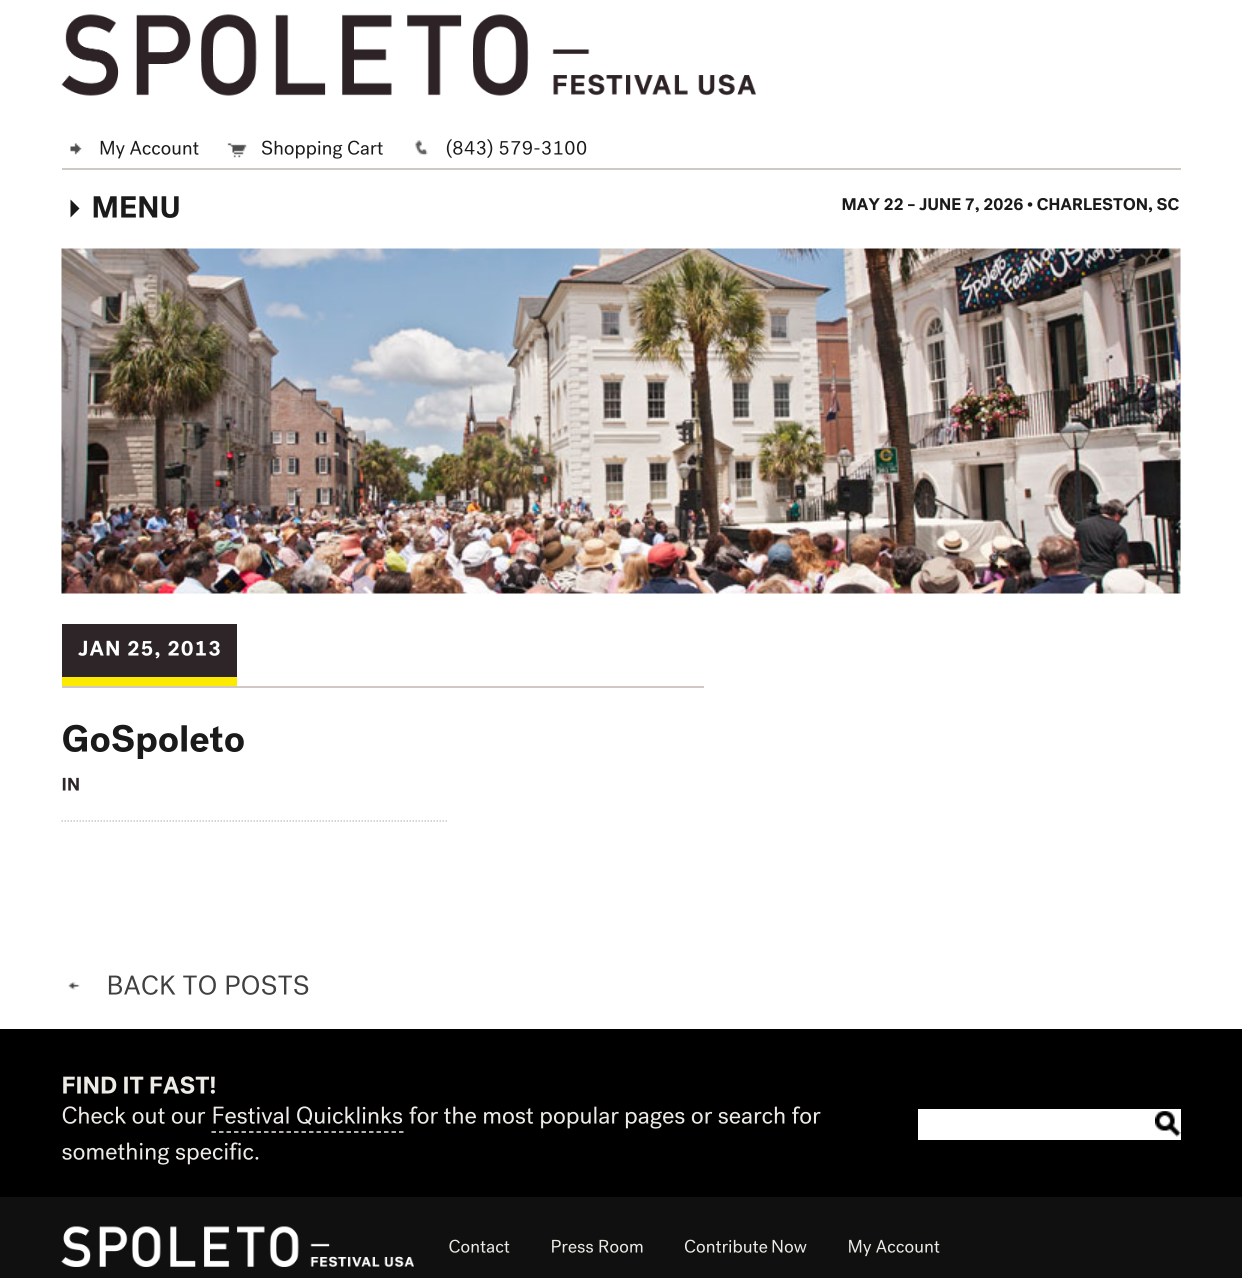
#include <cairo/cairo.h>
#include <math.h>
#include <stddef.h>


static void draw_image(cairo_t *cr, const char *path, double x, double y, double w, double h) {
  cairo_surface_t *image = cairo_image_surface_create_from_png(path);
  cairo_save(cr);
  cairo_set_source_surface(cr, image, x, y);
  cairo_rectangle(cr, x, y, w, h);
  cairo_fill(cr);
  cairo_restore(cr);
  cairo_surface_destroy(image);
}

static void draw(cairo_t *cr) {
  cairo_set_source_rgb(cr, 1, 1, 1);
  cairo_paint(cr);
  cairo_set_source_rgb(cr, 209 / 255.0, 200 / 255.0, 195 / 255.0);
  cairo_rectangle(cr, 62, 168, 1119, 2);
  cairo_fill(cr);
  draw_image(cr, "images/1.png", 61, 14, 695, 82);
  draw_image(cr, "images/2.png", 70, 143, 12, 12);
  draw_image(cr, "images/3.png", 100, 140, 99, 19);
  draw_image(cr, "images/4.png", 227, 143, 20, 15);
  draw_image(cr, "images/5.png", 262, 140, 121, 19);
  draw_image(cr, "images/6.png", 415, 140, 13, 16);
  draw_image(cr, "images/7.png", 446, 139, 141, 19);
  cairo_set_source_rgb(cr, 26 / 255.0, 26 / 255.0, 26 / 255.0);
  cairo_new_path(cr);
  cairo_move_to(cr, 70.5, 217.5);
  cairo_line_to(cr, 70.5, 199.5);
  cairo_line_to(cr, 79.5, 208.5);
  cairo_close_path(cr);
  cairo_fill(cr);
  draw_image(cr, "images/8.png", 93, 196, 86, 22);
  draw_image(cr, "images/9.png", 842, 198, 337, 15);
  draw_image(cr, "images/10.png", 61, 248, 1120, 346);
  cairo_set_source_rgb(cr, 45 / 255.0, 37 / 255.0, 39 / 255.0);
  cairo_rectangle(cr, 62, 624, 175, 53);
  cairo_fill(cr);
  cairo_set_source_rgb(cr, 252 / 255.0, 234 / 255.0, 1 / 255.0);
  cairo_rectangle(cr, 62, 677, 175, 9);
  cairo_fill(cr);
  draw_image(cr, "images/11.png", 78, 640, 142, 19);
  cairo_set_source_rgb(cr, 209 / 255.0, 200 / 255.0, 195 / 255.0);
  cairo_rectangle(cr, 62, 686, 642, 2);
  cairo_fill(cr);
  cairo_new_path(cr);
  cairo_move_to(cr, 61.5, 821);
  cairo_line_to(cr, 447, 821);
  cairo_set_source_rgb(cr, 200 / 255.0, 200 / 255.0, 200 / 255.0);
  cairo_set_line_width(cr, 1.5);
  cairo_set_dash(cr, (double[]){1.5, 1.5}, 2, 0);
  cairo_stroke(cr);
  draw_image(cr, "images/12.png", 63, 724, 181, 35);
  draw_image(cr, "images/13.png", 62, 777, 17, 14);
  draw_image(cr, "images/14.png", 68, 981, 12, 9);
  draw_image(cr, "images/15.png", 108, 975, 201, 20);
  cairo_set_source_rgb(cr, 0, 0, 0);
  cairo_rectangle(cr, 0, 1029, 1242, 168);
  cairo_fill(cr);
  draw_image(cr, "images/16.png", 63, 1076, 152, 18);
  draw_image(cr, "images/17.png", 62, 1106, 144, 18);
  draw_image(cr, "images/18.png", 213, 1106, 190, 19);
  draw_image(cr, "images/19.png", 409, 1106, 210, 23);
  draw_image(cr, "images/20.png", 625, 1106, 196, 23);
  cairo_new_path(cr);
  cairo_move_to(cr, 211.5, 1132);
  cairo_line_to(cr, 403.5, 1132);
  cairo_set_source_rgb(cr, 237 / 255.0, 235 / 255.0, 230 / 255.0);
  cairo_set_dash(cr, (double[]){4.5, 3}, 2, 0);
  cairo_stroke(cr);
  draw_image(cr, "images/21.png", 62, 1142, 197, 23);
  cairo_set_source_rgb(cr, 1, 1, 1);
  cairo_rectangle(cr, 918, 1109, 263, 31);
  cairo_fill(cr);
  draw_image(cr, "images/22.png", 1155, 1111, 26, 26);
  cairo_set_source_rgb(cr, 16 / 255.0, 16 / 255.0, 16 / 255.0);
  cairo_rectangle(cr, 0, 1197, 1242, 81);
  cairo_fill(cr);
  draw_image(cr, "images/23.png", 61, 1226, 353, 41);
  draw_image(cr, "images/24.png", 449, 1239, 61, 14);
  draw_image(cr, "images/25.png", 552, 1239, 91, 14);
  draw_image(cr, "images/26.png", 684, 1239, 84, 14);
  draw_image(cr, "images/27.png", 772, 1239, 35, 14);
  draw_image(cr, "images/28.png", 849, 1239, 91, 18);
}

int main(void) {
  cairo_surface_t *surface = cairo_image_surface_create(CAIRO_FORMAT_RGB24, 1242, 1278);
  cairo_t *cr = cairo_create(surface);
  cairo_font_options_t *options = cairo_font_options_create();
  cairo_font_options_set_hint_metrics(options, CAIRO_HINT_METRICS_OFF);
  cairo_font_options_set_hint_style(options, CAIRO_HINT_STYLE_NONE);
  cairo_set_font_options(cr, options);
  cairo_set_miter_limit(cr, 4);
  draw(cr);
  cairo_surface_write_to_png(surface, "out.png");
  cairo_font_options_destroy(options);
  cairo_destroy(cr);
  cairo_surface_destroy(surface);
  return 0;
}
